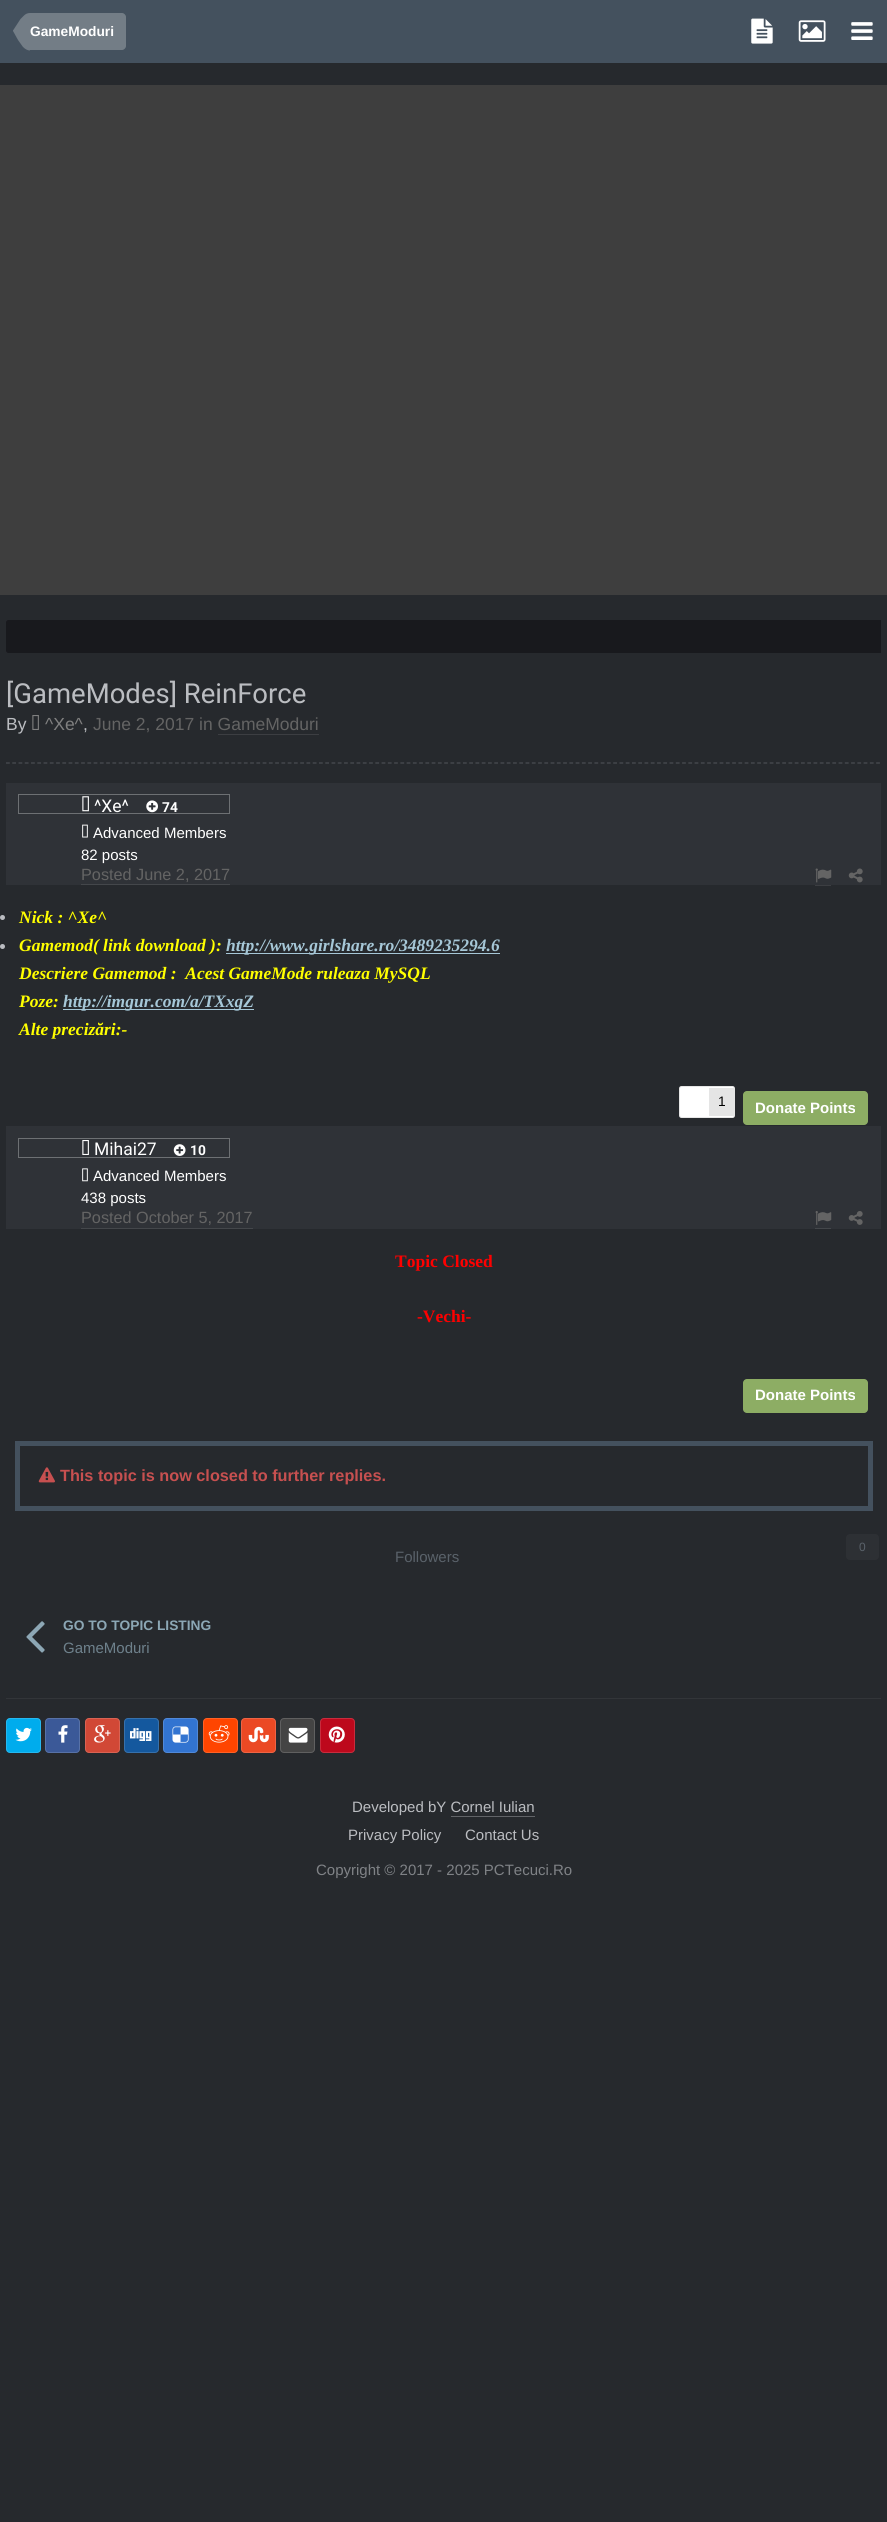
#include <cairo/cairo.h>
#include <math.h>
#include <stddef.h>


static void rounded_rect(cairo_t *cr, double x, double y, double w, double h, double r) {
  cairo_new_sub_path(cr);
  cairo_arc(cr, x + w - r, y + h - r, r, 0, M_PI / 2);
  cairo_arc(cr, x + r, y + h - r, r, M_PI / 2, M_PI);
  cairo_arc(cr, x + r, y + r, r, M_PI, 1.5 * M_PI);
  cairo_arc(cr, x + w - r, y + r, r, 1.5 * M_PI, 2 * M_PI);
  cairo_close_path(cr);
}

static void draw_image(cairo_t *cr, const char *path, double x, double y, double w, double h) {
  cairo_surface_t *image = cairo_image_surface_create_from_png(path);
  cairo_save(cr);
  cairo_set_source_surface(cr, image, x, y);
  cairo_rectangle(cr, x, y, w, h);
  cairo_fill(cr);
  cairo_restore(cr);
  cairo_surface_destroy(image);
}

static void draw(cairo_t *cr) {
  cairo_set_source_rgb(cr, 38 / 255.0, 41 / 255.0, 45 / 255.0);
  cairo_paint(cr);
  cairo_set_source_rgb(cr, 68 / 255.0, 81 / 255.0, 94 / 255.0);
  cairo_rectangle(cr, 0, 0, 887, 63);
  cairo_fill(cr);
  cairo_set_source_rgb(cr, 115 / 255.0, 125 / 255.0, 134 / 255.0);
  cairo_new_path(cr);
  cairo_move_to(cr, 30, 13);
  cairo_line_to(cr, 122, 13);
  cairo_curve_to(cr, 124, 13, 126, 15, 126, 17);
  cairo_line_to(cr, 126, 46);
  cairo_curve_to(cr, 126, 48, 124, 50, 122, 50);
  cairo_line_to(cr, 30, 50);
  cairo_close_path(cr);
  cairo_fill(cr);
  cairo_new_path(cr);
  cairo_move_to(cr, 13, 31);
  cairo_line_to(cr, 30, 31);
  cairo_line_to(cr, 30, 50.5);
  cairo_curve_to(cr, 28, 50.5, 25.5, 49.5, 23, 47);
  cairo_line_to(cr, 18, 40);
  cairo_close_path(cr);
  cairo_move_to(cr, 30, 13);
  cairo_line_to(cr, 30, 31);
  cairo_line_to(cr, 13, 31);
  cairo_line_to(cr, 13, 30.5);
  cairo_line_to(cr, 20.5, 19);
  cairo_line_to(cr, 24, 15.5);
  cairo_curve_to(cr, 25.5, 14, 27.5, 13, 30, 13);
  cairo_close_path(cr);
  cairo_fill(cr);
  draw_image(cr, "images/1.png", 751, 18, 22, 26);
  draw_image(cr, "images/2.png", 798, 20, 28, 22);
  draw_image(cr, "images/3.png", 851, 22, 22, 18);
  cairo_set_source_rgb(cr, 62 / 255.0, 62 / 255.0, 62 / 255.0);
  cairo_rectangle(cr, 0, 85, 887, 510);
  cairo_fill(cr);
  cairo_set_source_rgb(cr, 24 / 255.0, 25 / 255.0, 29 / 255.0);
  cairo_new_path(cr);
  cairo_move_to(cr, 8.5, 620.5);
  cairo_line_to(cr, 880.5, 620.5);
  cairo_line_to(cr, 880.5, 652.5);
  cairo_line_to(cr, 8.5, 652.5);
  cairo_curve_to(cr, 7.5, 652.5, 6.5, 651.5, 6.5, 650.5);
  cairo_line_to(cr, 6.5, 622.5);
  cairo_curve_to(cr, 6.5, 621.5, 7.5, 620.5, 8.5, 620.5);
  cairo_close_path(cr);
  cairo_fill_preserve(cr);
  cairo_set_line_width(cr, 1);
  cairo_stroke(cr);
  cairo_new_path(cr);
  cairo_move_to(cr, 6, 763);
  cairo_line_to(cr, 881, 763);
  cairo_set_source_rgb(cr, 75 / 255.0, 78 / 255.0, 82 / 255.0);
  cairo_set_line_width(cr, 1.2);
  cairo_set_dash(cr, (double[]){3.75, 2.51}, 2, 0);
  cairo_stroke(cr);
  draw_image(cr, "images/4.png", 32, 715, 7, 15);
  cairo_set_source_rgb(cr, 60 / 255.0, 62 / 255.0, 66 / 255.0);
  cairo_rectangle(cr, 218, 734, 101, 1);
  cairo_fill(cr);
  cairo_set_source_rgb(cr, 47 / 255.0, 50 / 255.0, 55 / 255.0);
  cairo_rectangle(cr, 6, 783, 875, 102);
  cairo_fill(cr);
  draw_image(cr, "images/5.png", 82, 796, 7, 16);
  draw_image(cr, "images/6.png", 146, 800, 12, 13);
  cairo_rectangle(cr, 18.5, 794.5, 211, 19);
  cairo_set_source_rgb(cr, 109 / 255.0, 112 / 255.0, 115 / 255.0);
  cairo_set_line_width(cr, 1);
  cairo_set_dash(cr, NULL, 0, 0);
  cairo_stroke(cr);
  draw_image(cr, "images/7.png", 82, 824, 6, 14);
  cairo_set_source_rgb(cr, 68 / 255.0, 71 / 255.0, 75 / 255.0);
  cairo_rectangle(cr, 81, 884, 149, 1);
  cairo_fill(cr);
  cairo_set_source_rgb(cr, 60 / 255.0, 62 / 255.0, 66 / 255.0);
  cairo_rectangle(cr, 815, 885, 16, 1);
  cairo_fill(cr);
  draw_image(cr, "images/8.png", 815, 868, 17, 15);
  draw_image(cr, "images/9.png", 848, 868, 15, 15);
  cairo_set_source_rgb(cr, 186 / 255.0, 188 / 255.0, 193 / 255.0);
  cairo_arc(cr, 2.5, 917.5, 2.5, 0, 2 * M_PI);
  cairo_fill(cr);
  cairo_arc(cr, 2.5, 946.5, 2.5, 0, 2 * M_PI);
  cairo_fill(cr);
  cairo_set_source_rgb(cr, 166 / 255.0, 199 / 255.0, 215 / 255.0);
  cairo_rectangle(cr, 226, 953, 274, 1);
  cairo_fill(cr);
  cairo_rectangle(cr, 63, 1009, 191, 1);
  cairo_fill(cr);
  cairo_set_source_rgb(cr, 1, 1, 1);
  rounded_rect(cr, 679, 1086, 56, 32, 2.5);
  cairo_fill(cr);
  rounded_rect(cr, 679.5, 1086.5, 55, 31, 2);
  cairo_set_source_rgba(cr, 0, 0, 0, 0.1);
  cairo_stroke(cr);
  cairo_set_source_rgb(cr, 229 / 255.0, 229 / 255.0, 229 / 255.0);
  cairo_rectangle(cr, 709, 1088, 25, 28);
  cairo_fill(cr);
  cairo_set_source_rgb(cr, 141 / 255.0, 173 / 255.0, 100 / 255.0);
  rounded_rect(cr, 743, 1091, 125, 34, 4);
  cairo_fill(cr);
  cairo_set_source_rgb(cr, 47 / 255.0, 50 / 255.0, 55 / 255.0);
  cairo_rectangle(cr, 6, 1126, 875, 103);
  cairo_fill(cr);
  draw_image(cr, "images/10.png", 82, 1140, 7, 15);
  draw_image(cr, "images/11.png", 173, 1144, 13, 12);
  cairo_rectangle(cr, 18.5, 1138.5, 211, 19);
  cairo_set_source_rgb(cr, 109 / 255.0, 112 / 255.0, 115 / 255.0);
  cairo_stroke(cr);
  draw_image(cr, "images/12.png", 82, 1168, 6, 14);
  cairo_set_source_rgb(cr, 68 / 255.0, 71 / 255.0, 75 / 255.0);
  cairo_rectangle(cr, 81, 1228, 172, 1);
  cairo_fill(cr);
  cairo_rectangle(cr, 815, 1228, 16, 1);
  cairo_fill(cr);
  draw_image(cr, "images/13.png", 815, 1211, 17, 14);
  draw_image(cr, "images/14.png", 848, 1211, 15, 14);
  cairo_set_source_rgb(cr, 141 / 255.0, 173 / 255.0, 100 / 255.0);
  rounded_rect(cr, 743, 1379, 125, 34, 4);
  cairo_fill(cr);
  cairo_set_source_rgb(cr, 68 / 255.0, 81 / 255.0, 94 / 255.0);
  cairo_rectangle(cr, 15, 1441, 858, 70);
  cairo_fill(cr);
  cairo_set_source_rgb(cr, 38 / 255.0, 41 / 255.0, 45 / 255.0);
  cairo_rectangle(cr, 20, 1446, 848, 60);
  cairo_fill(cr);
  draw_image(cr, "images/15.png", 38, 1467, 17, 16);
  cairo_set_source_rgb(cr, 45 / 255.0, 48 / 255.0, 52 / 255.0);
  rounded_rect(cr, 846, 1534, 33, 26, 4);
  cairo_fill(cr);
  draw_image(cr, "images/16.png", 26, 1621, 19, 32);
  cairo_set_source_rgb(cr, 50 / 255.0, 53 / 255.0, 57 / 255.0);
  cairo_rectangle(cr, 6, 1698, 875, 1);
  cairo_fill(cr);
  cairo_set_source_rgb(cr, 0, 172 / 255.0, 237 / 255.0);
  rounded_rect(cr, 6, 1718, 35, 35, 4);
  cairo_fill(cr);
  rounded_rect(cr, 6.5, 1718.5, 34, 34, 3.5);
  cairo_set_source_rgba(cr, 1, 1, 1, 0.15);
  cairo_stroke(cr);
  draw_image(cr, "images/17.png", 15, 1727, 17, 15);
  cairo_set_source_rgb(cr, 59 / 255.0, 89 / 255.0, 152 / 255.0);
  rounded_rect(cr, 45, 1718, 35, 35, 4);
  cairo_fill(cr);
  rounded_rect(cr, 45.5, 1718.5, 34, 34, 3.5);
  cairo_set_source_rgba(cr, 1, 1, 1, 0.15);
  cairo_stroke(cr);
  draw_image(cr, "images/18.png", 58, 1725, 10, 18);
  cairo_set_source_rgb(cr, 209 / 255.0, 72 / 255.0, 54 / 255.0);
  rounded_rect(cr, 85, 1718, 35, 35, 4);
  cairo_fill(cr);
  rounded_rect(cr, 85.5, 1718.5, 34, 34, 3.5);
  cairo_set_source_rgba(cr, 1, 1, 1, 0.15);
  cairo_stroke(cr);
  draw_image(cr, "images/19.png", 94, 1725, 17, 18);
  cairo_set_source_rgb(cr, 20 / 255.0, 88 / 255.0, 158 / 255.0);
  rounded_rect(cr, 124, 1718, 35, 35, 4);
  cairo_fill(cr);
  rounded_rect(cr, 124.5, 1718.5, 34, 34, 3.5);
  cairo_set_source_rgba(cr, 1, 1, 1, 0.15);
  cairo_stroke(cr);
  draw_image(cr, "images/20.png", 130, 1728, 22, 13);
  cairo_set_source_rgb(cr, 50 / 255.0, 116 / 255.0, 209 / 255.0);
  rounded_rect(cr, 163, 1718, 35, 35, 4);
  cairo_fill(cr);
  rounded_rect(cr, 163.5, 1718.5, 34, 34, 3.5);
  cairo_set_source_rgba(cr, 1, 1, 1, 0.15);
  cairo_stroke(cr);
  draw_image(cr, "images/21.png", 172, 1726, 17, 17);
  cairo_set_source_rgb(cr, 1, 69 / 255.0, 0);
  rounded_rect(cr, 203, 1718, 35, 35, 4);
  cairo_fill(cr);
  rounded_rect(cr, 203.5, 1718.5, 34, 34, 3.5);
  cairo_set_source_rgba(cr, 1, 1, 1, 0.15);
  cairo_stroke(cr);
  draw_image(cr, "images/22.png", 208, 1725, 22, 18);
  cairo_set_source_rgb(cr, 235 / 255.0, 73 / 255.0, 36 / 255.0);
  rounded_rect(cr, 241, 1718, 35, 35, 4);
  cairo_fill(cr);
  rounded_rect(cr, 241.5, 1718.5, 34, 34, 3.5);
  cairo_set_source_rgba(cr, 1, 1, 1, 0.15);
  cairo_stroke(cr);
  draw_image(cr, "images/23.png", 248, 1726, 21, 17);
  cairo_set_source_rgb(cr, 68 / 255.0, 68 / 255.0, 68 / 255.0);
  rounded_rect(cr, 280, 1718, 35, 35, 4);
  cairo_fill(cr);
  rounded_rect(cr, 280.5, 1718.5, 34, 34, 3.5);
  cairo_set_source_rgba(cr, 1, 1, 1, 0.15);
  cairo_stroke(cr);
  draw_image(cr, "images/24.png", 288, 1727, 20, 16);
  cairo_set_source_rgb(cr, 189 / 255.0, 8 / 255.0, 28 / 255.0);
  rounded_rect(cr, 320, 1718, 35, 35, 4);
  cairo_fill(cr);
  rounded_rect(cr, 320.5, 1718.5, 34, 34, 3.5);
  cairo_set_source_rgba(cr, 1, 1, 1, 0.15);
  cairo_stroke(cr);
  draw_image(cr, "images/25.png", 328, 1726, 17, 17);
  cairo_set_source_rgb(cr, 98 / 255.0, 100 / 255.0, 104 / 255.0);
  cairo_rectangle(cr, 451, 1816, 84, 1);
  cairo_fill(cr);
  cairo_select_font_face(cr, "Liberation Sans", CAIRO_FONT_SLANT_NORMAL, CAIRO_FONT_WEIGHT_BOLD);
  cairo_set_font_size(cr, 13.75);
  cairo_set_source_rgb(cr, 1, 1, 1);
  cairo_move_to(cr, 30, 36);
  cairo_show_text(cr, "GameModuri");
  cairo_select_font_face(cr, "Roboto", CAIRO_FONT_SLANT_NORMAL, CAIRO_FONT_WEIGHT_NORMAL);
  cairo_set_font_size(cr, 27.5);
  cairo_set_source_rgb(cr, 187 / 255.0, 189 / 255.0, 193 / 255.0);
  cairo_move_to(cr, 6, 703);
  cairo_show_text(cr, "[GameModes] ReinForce");
  cairo_select_font_face(cr, "Liberation Sans", CAIRO_FONT_SLANT_NORMAL, CAIRO_FONT_WEIGHT_NORMAL);
  cairo_set_font_size(cr, 17.5);
  cairo_move_to(cr, 6, 730);
  cairo_show_text(cr, "By");
  cairo_set_source_rgb(cr, 128 / 255.0, 128 / 255.0, 128 / 255.0);
  cairo_move_to(cr, 45, 730);
  cairo_show_text(cr, "^Xe^");
  cairo_set_source_rgb(cr, 187 / 255.0, 189 / 255.0, 193 / 255.0);
  cairo_move_to(cr, 83, 730);
  cairo_show_text(cr, ",");
  cairo_set_source_rgb(cr, 100 / 255.0, 100 / 255.0, 100 / 255.0);
  cairo_move_to(cr, 93, 730);
  cairo_show_text(cr, "June 2, 2017 in GameModuri");
  cairo_select_font_face(cr, "Roboto", CAIRO_FONT_SLANT_NORMAL, CAIRO_FONT_WEIGHT_NORMAL);
  cairo_set_source_rgb(cr, 1, 1, 1);
  cairo_move_to(cr, 94, 812);
  cairo_show_text(cr, "^Xe^");
  cairo_select_font_face(cr, "Roboto", CAIRO_FONT_SLANT_NORMAL, CAIRO_FONT_WEIGHT_BOLD);
  cairo_set_font_size(cr, 13.75);
  cairo_move_to(cr, 162, 812);
  cairo_show_text(cr, "74");
  cairo_select_font_face(cr, "Liberation Sans", CAIRO_FONT_SLANT_NORMAL, CAIRO_FONT_WEIGHT_NORMAL);
  cairo_set_font_size(cr, 15);
  cairo_move_to(cr, 93, 838);
  cairo_show_text(cr, "Advanced Members");
  cairo_move_to(cr, 81, 860);
  cairo_show_text(cr, "82 posts");
  cairo_set_font_size(cr, 16.25);
  cairo_set_source_rgb(cr, 100 / 255.0, 100 / 255.0, 100 / 255.0);
  cairo_move_to(cr, 81, 880);
  cairo_show_text(cr, "Posted June 2, 2017");
  cairo_select_font_face(cr, "Liberation Serif", CAIRO_FONT_SLANT_ITALIC, CAIRO_FONT_WEIGHT_BOLD);
  cairo_set_font_size(cr, 17.5);
  cairo_set_source_rgb(cr, 1, 1, 0);
  cairo_move_to(cr, 19, 923);
  cairo_show_text(cr, "Nick : ^Xe^");
  cairo_move_to(cr, 19, 951);
  cairo_show_text(cr, "Gamemod( link download ):");
  cairo_set_source_rgb(cr, 166 / 255.0, 199 / 255.0, 215 / 255.0);
  cairo_move_to(cr, 226, 951);
  cairo_show_text(cr, "http://www.girlshare.ro/3489235294.6");
  cairo_set_source_rgb(cr, 1, 1, 0);
  cairo_move_to(cr, 19, 979);
  cairo_show_text(cr, "Descriere Gamemod :  Acest GameMode ruleaza MySQL");
  cairo_move_to(cr, 19, 1007);
  cairo_show_text(cr, "Poze:");
  cairo_set_source_rgb(cr, 166 / 255.0, 199 / 255.0, 215 / 255.0);
  cairo_move_to(cr, 63, 1007);
  cairo_show_text(cr, "http://imgur.com/a/TXxgZ");
  cairo_set_source_rgb(cr, 1, 1, 0);
  cairo_move_to(cr, 19, 1035);
  cairo_show_text(cr, "Alte precizări:-");
  cairo_select_font_face(cr, "Liberation Sans", CAIRO_FONT_SLANT_NORMAL, CAIRO_FONT_WEIGHT_NORMAL);
  cairo_set_font_size(cr, 13.75);
  cairo_set_source_rgb(cr, 0, 0, 0);
  cairo_move_to(cr, 718, 1106);
  cairo_show_text(cr, "1");
  cairo_select_font_face(cr, "Liberation Sans", CAIRO_FONT_SLANT_NORMAL, CAIRO_FONT_WEIGHT_BOLD);
  cairo_set_font_size(cr, 15);
  cairo_set_source_rgb(cr, 1, 1, 1);
  cairo_move_to(cr, 755, 1113);
  cairo_show_text(cr, "Donate Points");
  cairo_select_font_face(cr, "Roboto", CAIRO_FONT_SLANT_NORMAL, CAIRO_FONT_WEIGHT_NORMAL);
  cairo_set_font_size(cr, 17.5);
  cairo_move_to(cr, 94, 1155);
  cairo_show_text(cr, "Mihai27");
  cairo_select_font_face(cr, "Roboto", CAIRO_FONT_SLANT_NORMAL, CAIRO_FONT_WEIGHT_BOLD);
  cairo_set_font_size(cr, 13.75);
  cairo_move_to(cr, 190, 1155);
  cairo_show_text(cr, "10");
  cairo_select_font_face(cr, "Liberation Sans", CAIRO_FONT_SLANT_NORMAL, CAIRO_FONT_WEIGHT_NORMAL);
  cairo_set_font_size(cr, 15);
  cairo_move_to(cr, 93, 1181);
  cairo_show_text(cr, "Advanced Members");
  cairo_move_to(cr, 81, 1203);
  cairo_show_text(cr, "438 posts");
  cairo_set_font_size(cr, 16.25);
  cairo_set_source_rgb(cr, 100 / 255.0, 100 / 255.0, 100 / 255.0);
  cairo_move_to(cr, 81, 1223);
  cairo_show_text(cr, "Posted October 5, 2017");
  cairo_select_font_face(cr, "Liberation Serif", CAIRO_FONT_SLANT_NORMAL, CAIRO_FONT_WEIGHT_BOLD);
  cairo_set_font_size(cr, 17.5);
  cairo_set_source_rgb(cr, 1, 0, 0);
  cairo_move_to(cr, 395, 1267);
  cairo_show_text(cr, "Topic Closed");
  cairo_move_to(cr, 417, 1322);
  cairo_show_text(cr, "-Vechi-");
  cairo_select_font_face(cr, "Liberation Sans", CAIRO_FONT_SLANT_NORMAL, CAIRO_FONT_WEIGHT_BOLD);
  cairo_set_font_size(cr, 15);
  cairo_set_source_rgb(cr, 1, 1, 1);
  cairo_move_to(cr, 755, 1400);
  cairo_show_text(cr, "Donate Points");
  cairo_set_font_size(cr, 16.25);
  cairo_set_source_rgb(cr, 199 / 255.0, 80 / 255.0, 80 / 255.0);
  cairo_move_to(cr, 60, 1481);
  cairo_show_text(cr, "This topic is now closed to further replies.");
  cairo_select_font_face(cr, "Liberation Sans", CAIRO_FONT_SLANT_NORMAL, CAIRO_FONT_WEIGHT_NORMAL);
  cairo_set_font_size(cr, 12);
  cairo_set_source_rgb(cr, 90 / 255.0, 98 / 255.0, 106 / 255.0);
  cairo_move_to(cr, 859, 1551);
  cairo_show_text(cr, "0");
  cairo_set_font_size(cr, 15);
  cairo_move_to(cr, 395, 1562);
  cairo_show_text(cr, "Followers");
  cairo_select_font_face(cr, "Liberation Sans", CAIRO_FONT_SLANT_NORMAL, CAIRO_FONT_WEIGHT_BOLD);
  cairo_set_font_size(cr, 13.75);
  cairo_set_source_rgb(cr, 140 / 255.0, 167 / 255.0, 181 / 255.0);
  cairo_move_to(cr, 63, 1630);
  cairo_show_text(cr, "GO TO TOPIC LISTING");
  cairo_select_font_face(cr, "Liberation Sans", CAIRO_FONT_SLANT_NORMAL, CAIRO_FONT_WEIGHT_NORMAL);
  cairo_set_font_size(cr, 15);
  cairo_set_source_rgb(cr, 110 / 255.0, 129 / 255.0, 140 / 255.0);
  cairo_move_to(cr, 63, 1653);
  cairo_show_text(cr, "GameModuri");
  cairo_set_source_rgb(cr, 187 / 255.0, 189 / 255.0, 193 / 255.0);
  cairo_move_to(cr, 352, 1812);
  cairo_show_text(cr, "Developed bY Cornel Iulian");
  cairo_move_to(cr, 348, 1840);
  cairo_show_text(cr, "Privacy Policy");
  cairo_move_to(cr, 465, 1840);
  cairo_show_text(cr, "Contact Us");
  cairo_set_source_rgb(cr, 127 / 255.0, 130 / 255.0, 134 / 255.0);
  cairo_move_to(cr, 316, 1875);
  cairo_show_text(cr, "Copyright © 2017 - 2025 PCTecuci.Ro");
}

int main(void) {
  cairo_surface_t *surface = cairo_image_surface_create(CAIRO_FORMAT_RGB24, 887, 2522);
  cairo_t *cr = cairo_create(surface);
  cairo_font_options_t *options = cairo_font_options_create();
  cairo_font_options_set_hint_metrics(options, CAIRO_HINT_METRICS_OFF);
  cairo_font_options_set_hint_style(options, CAIRO_HINT_STYLE_NONE);
  cairo_set_font_options(cr, options);
  cairo_set_miter_limit(cr, 4);
  draw(cr);
  cairo_surface_write_to_png(surface, "out.png");
  cairo_font_options_destroy(options);
  cairo_destroy(cr);
  cairo_surface_destroy(surface);
  return 0;
}
